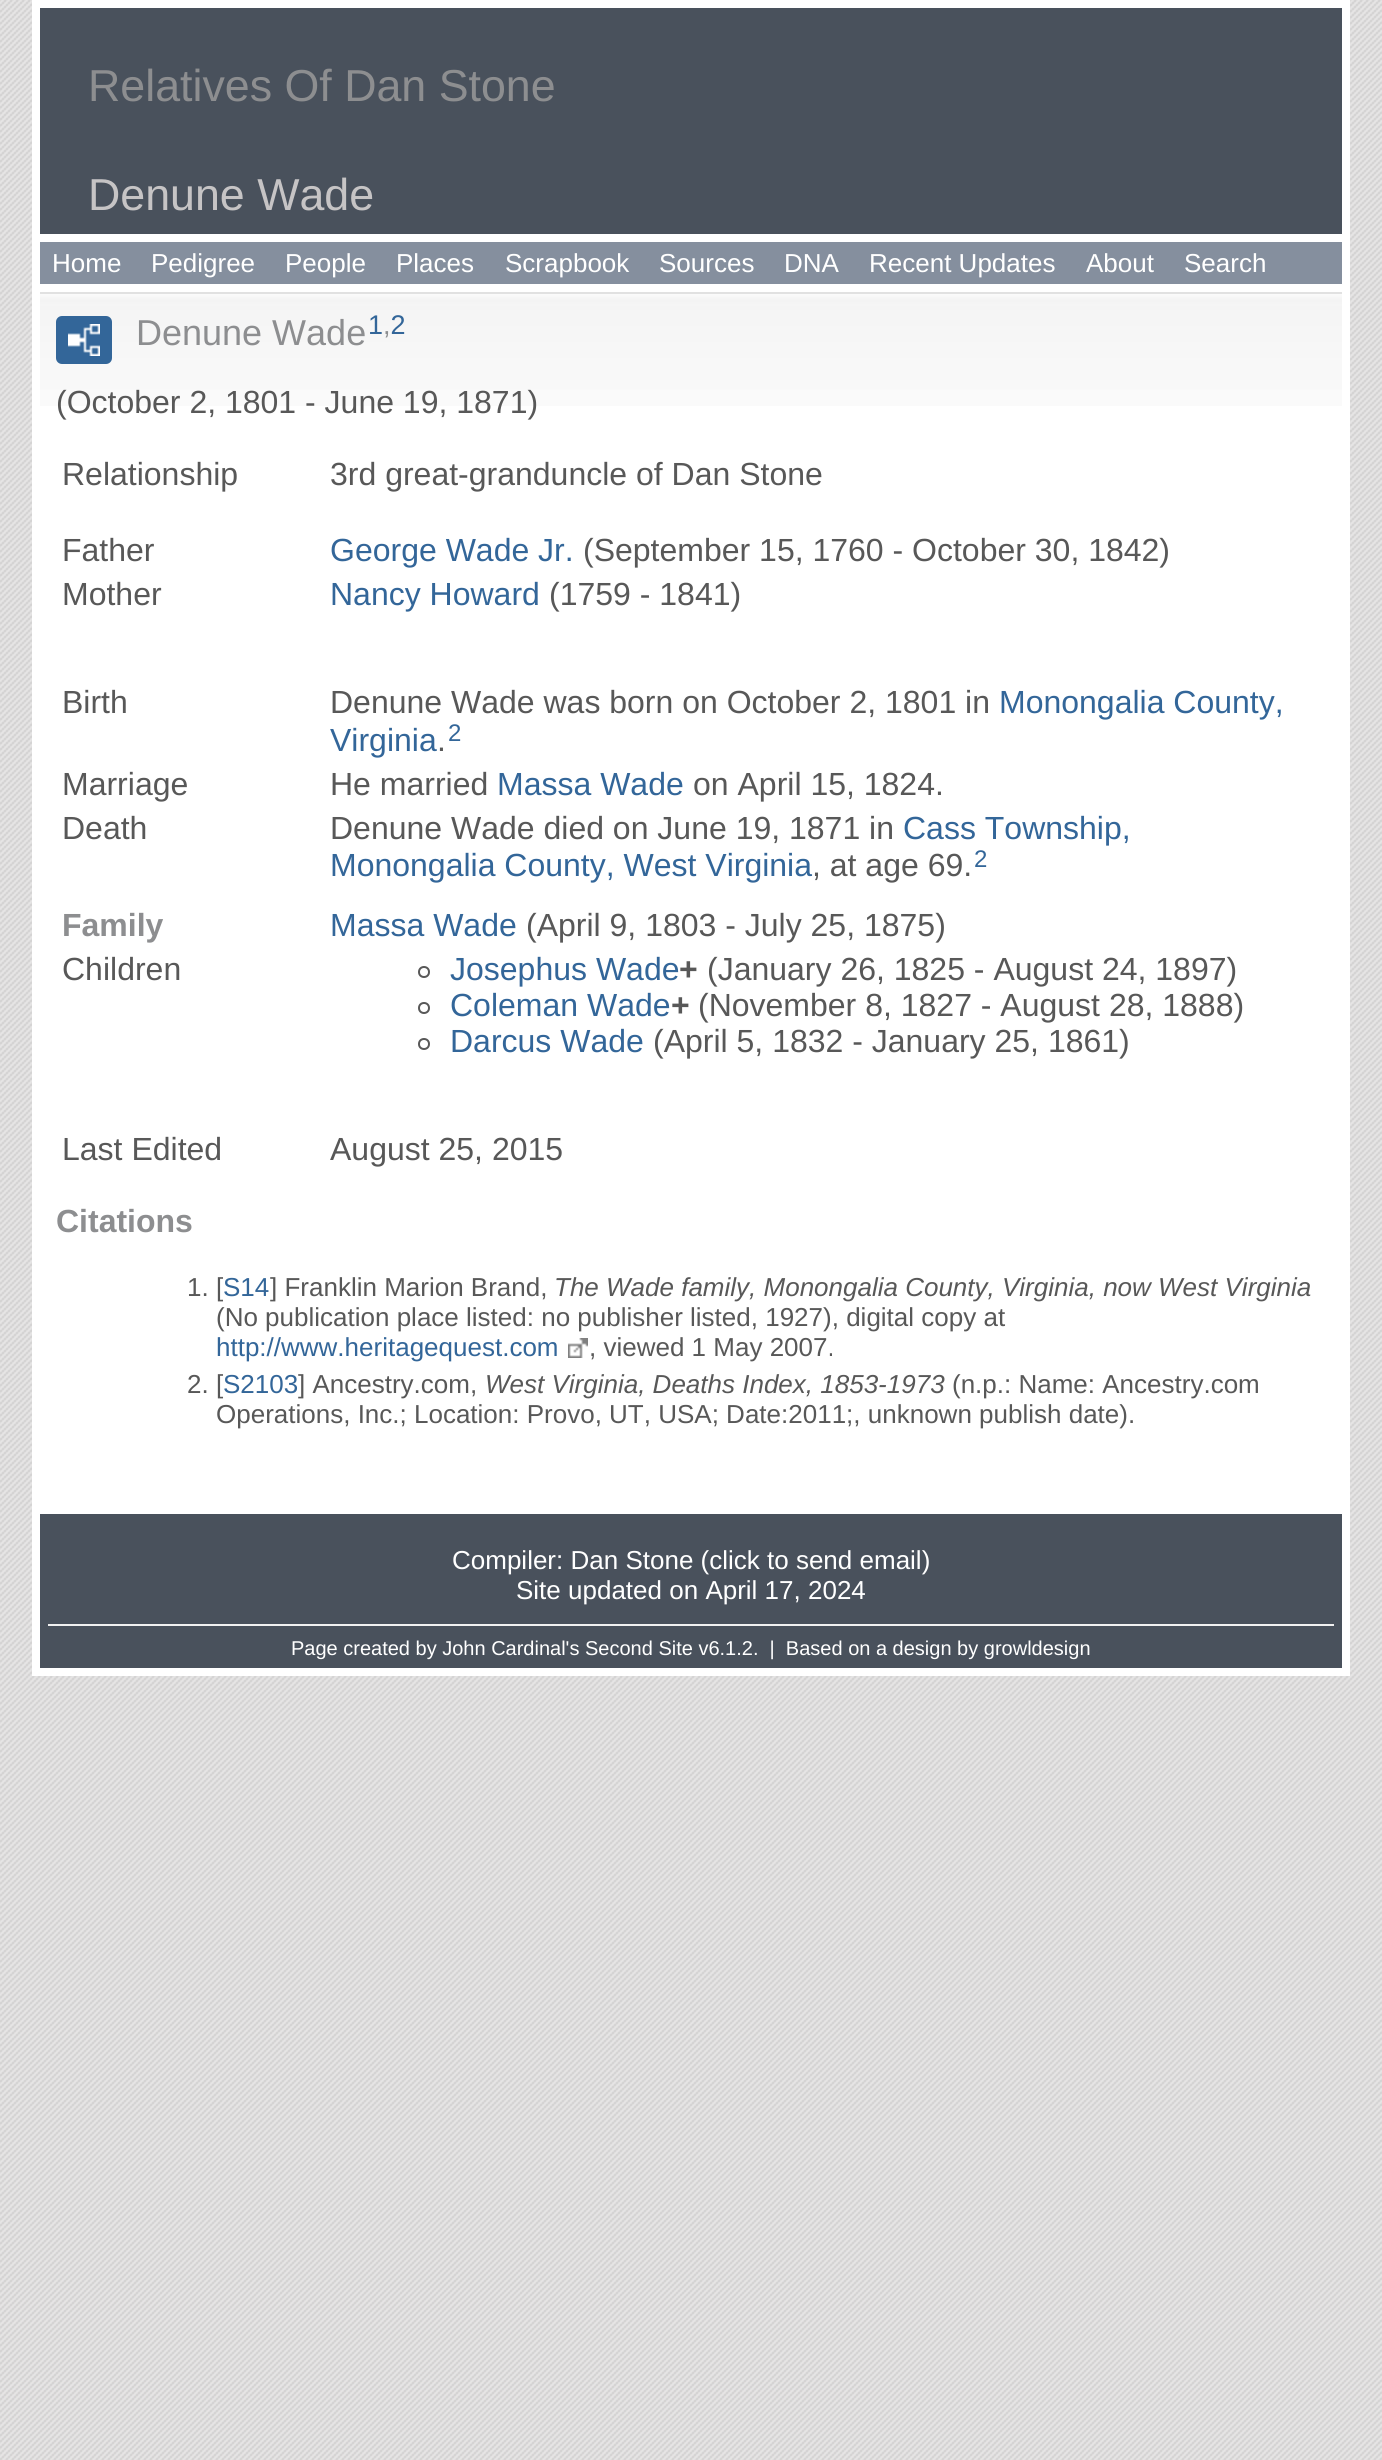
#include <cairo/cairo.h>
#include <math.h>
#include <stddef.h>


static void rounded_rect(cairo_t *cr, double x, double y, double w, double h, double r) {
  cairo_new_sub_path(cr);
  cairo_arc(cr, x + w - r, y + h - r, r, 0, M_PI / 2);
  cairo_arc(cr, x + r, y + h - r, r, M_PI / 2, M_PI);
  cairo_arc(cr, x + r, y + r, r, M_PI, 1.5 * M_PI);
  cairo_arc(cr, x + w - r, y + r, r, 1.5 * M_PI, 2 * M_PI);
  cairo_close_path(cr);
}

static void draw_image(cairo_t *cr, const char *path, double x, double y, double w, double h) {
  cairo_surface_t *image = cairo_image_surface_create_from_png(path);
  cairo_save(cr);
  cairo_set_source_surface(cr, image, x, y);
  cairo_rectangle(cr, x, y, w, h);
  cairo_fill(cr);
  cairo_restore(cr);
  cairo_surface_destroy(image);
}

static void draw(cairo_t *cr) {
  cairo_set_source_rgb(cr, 1, 1, 1);
  cairo_paint(cr);
  draw_image(cr, "images/1.png", 0, 0, 1382, 2460);
  cairo_set_source_rgb(cr, 1, 1, 1);
  cairo_rectangle(cr, 32, 0, 1318, 1676);
  cairo_fill(cr);
  cairo_set_source_rgb(cr, 73 / 255.0, 81 / 255.0, 92 / 255.0);
  cairo_rectangle(cr, 40, 8, 1302, 226);
  cairo_fill(cr);
  cairo_set_source_rgb(cr, 133 / 255.0, 143 / 255.0, 158 / 255.0);
  cairo_rectangle(cr, 40, 242, 1302, 42);
  cairo_fill(cr);
  draw_image(cr, "images/2.png", 40, 294, 1302, 112);
  cairo_set_source_rgb(cr, 225 / 255.0, 225 / 255.0, 225 / 255.0);
  cairo_rectangle(cr, 40, 292, 1302, 2);
  cairo_fill(cr);
  cairo_set_source_rgb(cr, 51 / 255.0, 102 / 255.0, 153 / 255.0);
  rounded_rect(cr, 56, 316, 56, 48, 6);
  cairo_fill(cr);
  draw_image(cr, "images/3.png", 68, 324, 32, 32);
  cairo_arc(cr, 424, 972, 5, 0, 2 * M_PI);
  cairo_set_source_rgb(cr, 88 / 255.0, 88 / 255.0, 88 / 255.0);
  cairo_stroke(cr);
  cairo_arc(cr, 424, 1008, 5, 0, 2 * M_PI);
  cairo_stroke(cr);
  cairo_arc(cr, 424, 1044, 5, 0, 2 * M_PI);
  cairo_stroke(cr);
  draw_image(cr, "images/4.png", 568, 1338, 20, 20);
  cairo_set_source_rgb(cr, 73 / 255.0, 81 / 255.0, 92 / 255.0);
  cairo_rectangle(cr, 40, 1514, 1302, 154);
  cairo_fill(cr);
  cairo_set_source_rgb(cr, 241 / 255.0, 241 / 255.0, 241 / 255.0);
  cairo_rectangle(cr, 48, 1624, 1286, 2);
  cairo_fill(cr);
  cairo_select_font_face(cr, "Liberation Sans", CAIRO_FONT_SLANT_NORMAL, CAIRO_FONT_WEIGHT_NORMAL);
  cairo_set_font_size(cr, 44.75);
  cairo_set_source_rgb(cr, 141 / 255.0, 142 / 255.0, 144 / 255.0);
  cairo_move_to(cr, 88, 101);
  cairo_show_text(cr, "Relatives Of Dan Stone");
  cairo_set_source_rgb(cr, 198 / 255.0, 196 / 255.0, 197 / 255.0);
  cairo_move_to(cr, 88, 210);
  cairo_show_text(cr, "Denune Wade");
  cairo_set_font_size(cr, 26);
  cairo_set_source_rgb(cr, 1, 1, 1);
  cairo_move_to(cr, 52, 272);
  cairo_show_text(cr, "Home");
  cairo_move_to(cr, 151, 272);
  cairo_show_text(cr, "Pedigree");
  cairo_move_to(cr, 285, 272);
  cairo_show_text(cr, "People");
  cairo_move_to(cr, 396, 272);
  cairo_show_text(cr, "Places");
  cairo_move_to(cr, 505, 272);
  cairo_show_text(cr, "Scrapbook");
  cairo_move_to(cr, 659, 272);
  cairo_show_text(cr, "Sources");
  cairo_move_to(cr, 784, 272);
  cairo_show_text(cr, "DNA");
  cairo_move_to(cr, 869, 272);
  cairo_show_text(cr, "Recent Updates");
  cairo_move_to(cr, 1086, 272);
  cairo_show_text(cr, "About");
  cairo_move_to(cr, 1184, 272);
  cairo_show_text(cr, "Search");
  cairo_set_font_size(cr, 36);
  cairo_set_source_rgb(cr, 141 / 255.0, 142 / 255.0, 144 / 255.0);
  cairo_move_to(cr, 136, 345);
  cairo_show_text(cr, "Denune Wade");
  cairo_set_font_size(cr, 27);
  cairo_set_source_rgb(cr, 51 / 255.0, 102 / 255.0, 153 / 255.0);
  cairo_move_to(cr, 368, 334);
  cairo_show_text(cr, "1 2");
  cairo_set_source_rgb(cr, 141 / 255.0, 142 / 255.0, 144 / 255.0);
  cairo_move_to(cr, 383, 334);
  cairo_show_text(cr, ",");
  cairo_set_font_size(cr, 32);
  cairo_set_source_rgb(cr, 88 / 255.0, 88 / 255.0, 88 / 255.0);
  cairo_move_to(cr, 56, 413);
  cairo_show_text(cr, "(October 2, 1801 - June 19, 1871)");
  cairo_move_to(cr, 62, 485);
  cairo_show_text(cr, "Relationship");
  cairo_move_to(cr, 330, 485);
  cairo_show_text(cr, "3rd great-granduncle of Dan Stone");
  cairo_move_to(cr, 62, 561);
  cairo_show_text(cr, "Father");
  cairo_set_source_rgb(cr, 51 / 255.0, 102 / 255.0, 153 / 255.0);
  cairo_move_to(cr, 330, 561);
  cairo_show_text(cr, "George Wade Jr.");
  cairo_set_source_rgb(cr, 88 / 255.0, 88 / 255.0, 88 / 255.0);
  cairo_move_to(cr, 583, 561);
  cairo_show_text(cr, "(September 15, 1760 - October 30, 1842)");
  cairo_move_to(cr, 62, 605);
  cairo_show_text(cr, "Mother");
  cairo_set_source_rgb(cr, 51 / 255.0, 102 / 255.0, 153 / 255.0);
  cairo_move_to(cr, 330, 605);
  cairo_show_text(cr, "Nancy Howard");
  cairo_set_source_rgb(cr, 88 / 255.0, 88 / 255.0, 88 / 255.0);
  cairo_move_to(cr, 549, 605);
  cairo_show_text(cr, "(1759 - 1841)");
  cairo_move_to(cr, 62, 713);
  cairo_show_text(cr, "Birth");
  cairo_move_to(cr, 330, 713);
  cairo_show_text(cr, "Denune Wade was born on October 2, 1801 in");
  cairo_set_source_rgb(cr, 51 / 255.0, 102 / 255.0, 153 / 255.0);
  cairo_move_to(cr, 999, 713);
  cairo_show_text(cr, "Monongalia County,");
  cairo_move_to(cr, 330, 751);
  cairo_show_text(cr, "Virginia");
  cairo_set_source_rgb(cr, 88 / 255.0, 88 / 255.0, 88 / 255.0);
  cairo_move_to(cr, 437, 751);
  cairo_show_text(cr, ".");
  cairo_set_font_size(cr, 24);
  cairo_set_source_rgb(cr, 51 / 255.0, 102 / 255.0, 153 / 255.0);
  cairo_move_to(cr, 448, 741);
  cairo_show_text(cr, "2");
  cairo_set_font_size(cr, 32);
  cairo_set_source_rgb(cr, 88 / 255.0, 88 / 255.0, 88 / 255.0);
  cairo_move_to(cr, 62, 795);
  cairo_show_text(cr, "Marriage");
  cairo_move_to(cr, 330, 795);
  cairo_show_text(cr, "He married");
  cairo_set_source_rgb(cr, 51 / 255.0, 102 / 255.0, 153 / 255.0);
  cairo_move_to(cr, 497, 795);
  cairo_show_text(cr, "Massa Wade");
  cairo_set_source_rgb(cr, 88 / 255.0, 88 / 255.0, 88 / 255.0);
  cairo_move_to(cr, 693, 795);
  cairo_show_text(cr, "on April 15, 1824.");
  cairo_move_to(cr, 62, 839);
  cairo_show_text(cr, "Death");
  cairo_move_to(cr, 330, 839);
  cairo_show_text(cr, "Denune Wade died on June 19, 1871 in");
  cairo_set_source_rgb(cr, 51 / 255.0, 102 / 255.0, 153 / 255.0);
  cairo_move_to(cr, 903, 839);
  cairo_show_text(cr, "Cass Township,");
  cairo_move_to(cr, 330, 876);
  cairo_show_text(cr, "Monongalia County, West Virginia");
  cairo_set_source_rgb(cr, 88 / 255.0, 88 / 255.0, 88 / 255.0);
  cairo_move_to(cr, 812, 876);
  cairo_show_text(cr, ", at age 69.");
  cairo_set_font_size(cr, 24);
  cairo_set_source_rgb(cr, 51 / 255.0, 102 / 255.0, 153 / 255.0);
  cairo_move_to(cr, 974, 867);
  cairo_show_text(cr, "2");
  cairo_select_font_face(cr, "Liberation Sans", CAIRO_FONT_SLANT_NORMAL, CAIRO_FONT_WEIGHT_BOLD);
  cairo_set_font_size(cr, 32);
  cairo_set_source_rgb(cr, 141 / 255.0, 142 / 255.0, 144 / 255.0);
  cairo_move_to(cr, 62, 936);
  cairo_show_text(cr, "Family");
  cairo_select_font_face(cr, "Liberation Sans", CAIRO_FONT_SLANT_NORMAL, CAIRO_FONT_WEIGHT_NORMAL);
  cairo_set_source_rgb(cr, 51 / 255.0, 102 / 255.0, 153 / 255.0);
  cairo_move_to(cr, 330, 936);
  cairo_show_text(cr, "Massa Wade");
  cairo_set_source_rgb(cr, 88 / 255.0, 88 / 255.0, 88 / 255.0);
  cairo_move_to(cr, 526, 936);
  cairo_show_text(cr, "(April 9, 1803 - July 25, 1875)");
  cairo_move_to(cr, 62, 980);
  cairo_show_text(cr, "Children");
  cairo_set_source_rgb(cr, 51 / 255.0, 102 / 255.0, 153 / 255.0);
  cairo_move_to(cr, 450, 980);
  cairo_show_text(cr, "Josephus Wade");
  cairo_select_font_face(cr, "Liberation Sans", CAIRO_FONT_SLANT_NORMAL, CAIRO_FONT_WEIGHT_BOLD);
  cairo_set_source_rgb(cr, 88 / 255.0, 88 / 255.0, 88 / 255.0);
  cairo_move_to(cr, 679, 980);
  cairo_show_text(cr, "+");
  cairo_select_font_face(cr, "Liberation Sans", CAIRO_FONT_SLANT_NORMAL, CAIRO_FONT_WEIGHT_NORMAL);
  cairo_move_to(cr, 707, 980);
  cairo_show_text(cr, "(January 26, 1825 - August 24, 1897)");
  cairo_set_source_rgb(cr, 51 / 255.0, 102 / 255.0, 153 / 255.0);
  cairo_move_to(cr, 450, 1016);
  cairo_show_text(cr, "Coleman Wade");
  cairo_select_font_face(cr, "Liberation Sans", CAIRO_FONT_SLANT_NORMAL, CAIRO_FONT_WEIGHT_BOLD);
  cairo_set_source_rgb(cr, 88 / 255.0, 88 / 255.0, 88 / 255.0);
  cairo_move_to(cr, 671, 1016);
  cairo_show_text(cr, "+");
  cairo_select_font_face(cr, "Liberation Sans", CAIRO_FONT_SLANT_NORMAL, CAIRO_FONT_WEIGHT_NORMAL);
  cairo_move_to(cr, 698, 1016);
  cairo_show_text(cr, "(November 8, 1827 - August 28, 1888)");
  cairo_set_source_rgb(cr, 51 / 255.0, 102 / 255.0, 153 / 255.0);
  cairo_move_to(cr, 450, 1052);
  cairo_show_text(cr, "Darcus Wade");
  cairo_set_source_rgb(cr, 88 / 255.0, 88 / 255.0, 88 / 255.0);
  cairo_move_to(cr, 653, 1052);
  cairo_show_text(cr, "(April 5, 1832 - January 25, 1861)");
  cairo_move_to(cr, 62, 1160);
  cairo_show_text(cr, "Last Edited");
  cairo_move_to(cr, 330, 1160);
  cairo_show_text(cr, "August 25, 2015");
  cairo_select_font_face(cr, "Liberation Sans", CAIRO_FONT_SLANT_NORMAL, CAIRO_FONT_WEIGHT_BOLD);
  cairo_set_source_rgb(cr, 141 / 255.0, 142 / 255.0, 144 / 255.0);
  cairo_move_to(cr, 56, 1232);
  cairo_show_text(cr, "Citations");
  cairo_select_font_face(cr, "Liberation Sans", CAIRO_FONT_SLANT_NORMAL, CAIRO_FONT_WEIGHT_NORMAL);
  cairo_set_font_size(cr, 26);
  cairo_set_source_rgb(cr, 88 / 255.0, 88 / 255.0, 88 / 255.0);
  cairo_move_to(cr, 187, 1296);
  cairo_show_text(cr, "1. [");
  cairo_set_source_rgb(cr, 51 / 255.0, 102 / 255.0, 153 / 255.0);
  cairo_move_to(cr, 223, 1296);
  cairo_show_text(cr, "S14");
  cairo_set_source_rgb(cr, 88 / 255.0, 88 / 255.0, 88 / 255.0);
  cairo_move_to(cr, 270, 1296);
  cairo_show_text(cr, "] Franklin Marion Brand,");
  cairo_select_font_face(cr, "Liberation Sans", CAIRO_FONT_SLANT_ITALIC, CAIRO_FONT_WEIGHT_NORMAL);
  cairo_move_to(cr, 554, 1296);
  cairo_show_text(cr, "The Wade family, Monongalia County, Virginia, now West Virginia");
  cairo_select_font_face(cr, "Liberation Sans", CAIRO_FONT_SLANT_NORMAL, CAIRO_FONT_WEIGHT_NORMAL);
  cairo_move_to(cr, 216, 1326);
  cairo_show_text(cr, "(No publication place listed: no publisher listed, 1927), digital copy at");
  cairo_set_source_rgb(cr, 51 / 255.0, 102 / 255.0, 153 / 255.0);
  cairo_move_to(cr, 216, 1356);
  cairo_show_text(cr, "http://www.heritagequest.com");
  cairo_set_source_rgb(cr, 88 / 255.0, 88 / 255.0, 88 / 255.0);
  cairo_move_to(cr, 589, 1356);
  cairo_show_text(cr, ", viewed 1 May 2007.");
  cairo_move_to(cr, 187, 1393);
  cairo_show_text(cr, "2. [");
  cairo_set_source_rgb(cr, 51 / 255.0, 102 / 255.0, 153 / 255.0);
  cairo_move_to(cr, 223, 1393);
  cairo_show_text(cr, "S2103");
  cairo_set_source_rgb(cr, 88 / 255.0, 88 / 255.0, 88 / 255.0);
  cairo_move_to(cr, 298, 1393);
  cairo_show_text(cr, "] Ancestry.com,");
  cairo_select_font_face(cr, "Liberation Sans", CAIRO_FONT_SLANT_ITALIC, CAIRO_FONT_WEIGHT_NORMAL);
  cairo_move_to(cr, 485, 1393);
  cairo_show_text(cr, "West Virginia, Deaths Index, 1853-1973");
  cairo_select_font_face(cr, "Liberation Sans", CAIRO_FONT_SLANT_NORMAL, CAIRO_FONT_WEIGHT_NORMAL);
  cairo_move_to(cr, 952, 1393);
  cairo_show_text(cr, "(n.p.: Name: Ancestry.com");
  cairo_move_to(cr, 216, 1423);
  cairo_show_text(cr, "Operations, Inc.; Location: Provo, UT, USA; Date:2011;, unknown publish date).");
  cairo_set_source_rgb(cr, 1, 1, 1);
  cairo_move_to(cr, 452, 1569);
  cairo_show_text(cr, "Compiler: Dan Stone (click to send email)");
  cairo_move_to(cr, 516, 1599);
  cairo_show_text(cr, "Site updated on April 17, 2024");
  cairo_set_font_size(cr, 20);
  cairo_move_to(cr, 291, 1655);
  cairo_show_text(cr, "Page created by John Cardinal's Second Site v6.1.2.  |  Based on a design by growldesign");
}

int main(void) {
  cairo_surface_t *surface = cairo_image_surface_create(CAIRO_FORMAT_RGB24, 1382, 2460);
  cairo_t *cr = cairo_create(surface);
  cairo_font_options_t *options = cairo_font_options_create();
  cairo_font_options_set_hint_metrics(options, CAIRO_HINT_METRICS_OFF);
  cairo_font_options_set_hint_style(options, CAIRO_HINT_STYLE_NONE);
  cairo_set_font_options(cr, options);
  cairo_set_miter_limit(cr, 4);
  draw(cr);
  cairo_surface_write_to_png(surface, "out.png");
  cairo_font_options_destroy(options);
  cairo_destroy(cr);
  cairo_surface_destroy(surface);
  return 0;
}
